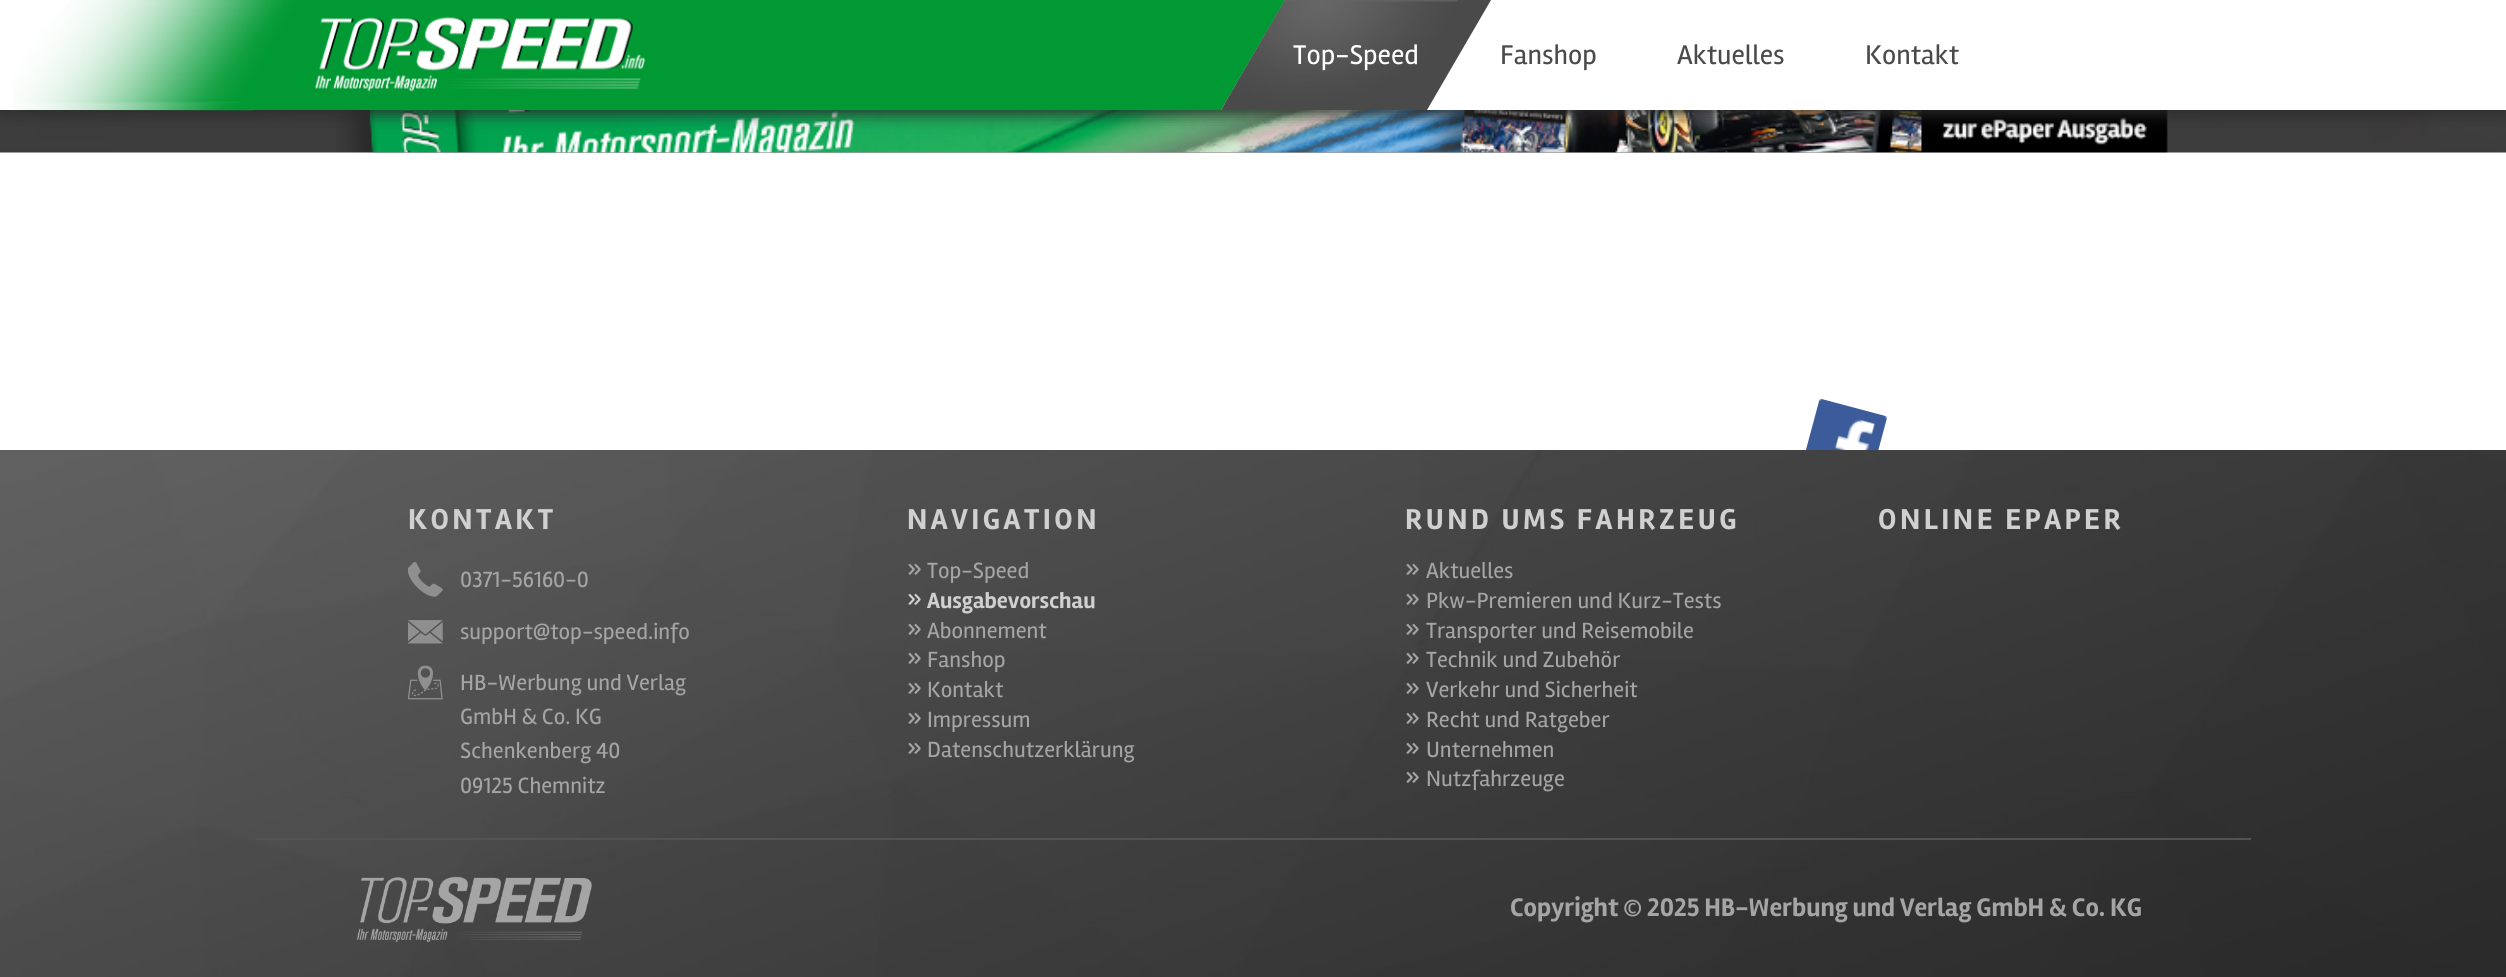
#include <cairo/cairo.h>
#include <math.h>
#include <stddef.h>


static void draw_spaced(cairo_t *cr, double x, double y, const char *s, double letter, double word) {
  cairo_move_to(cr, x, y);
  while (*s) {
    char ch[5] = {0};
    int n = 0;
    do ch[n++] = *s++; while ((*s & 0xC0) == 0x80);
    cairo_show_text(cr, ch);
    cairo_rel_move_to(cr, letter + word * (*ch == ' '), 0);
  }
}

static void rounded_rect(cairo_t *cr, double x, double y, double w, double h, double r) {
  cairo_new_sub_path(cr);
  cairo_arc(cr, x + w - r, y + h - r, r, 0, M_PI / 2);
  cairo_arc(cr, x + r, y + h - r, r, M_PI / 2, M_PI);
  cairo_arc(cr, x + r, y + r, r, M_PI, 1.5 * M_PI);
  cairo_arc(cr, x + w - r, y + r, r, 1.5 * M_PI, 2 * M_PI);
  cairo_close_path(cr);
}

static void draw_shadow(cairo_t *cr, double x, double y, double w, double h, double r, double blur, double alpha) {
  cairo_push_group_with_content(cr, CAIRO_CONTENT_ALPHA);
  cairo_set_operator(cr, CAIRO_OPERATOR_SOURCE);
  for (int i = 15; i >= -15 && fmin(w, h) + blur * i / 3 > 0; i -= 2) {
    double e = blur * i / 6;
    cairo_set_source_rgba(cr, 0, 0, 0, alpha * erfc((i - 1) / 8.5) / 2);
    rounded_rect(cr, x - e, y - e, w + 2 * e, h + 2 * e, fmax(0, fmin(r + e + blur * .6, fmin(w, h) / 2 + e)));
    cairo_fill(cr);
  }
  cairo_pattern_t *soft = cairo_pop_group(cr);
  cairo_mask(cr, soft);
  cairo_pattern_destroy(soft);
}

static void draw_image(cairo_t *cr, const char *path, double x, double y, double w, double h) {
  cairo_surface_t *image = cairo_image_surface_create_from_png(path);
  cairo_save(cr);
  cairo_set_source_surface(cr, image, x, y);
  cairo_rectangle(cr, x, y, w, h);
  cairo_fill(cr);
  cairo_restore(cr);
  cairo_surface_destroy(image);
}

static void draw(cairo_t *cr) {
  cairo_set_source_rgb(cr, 1, 1, 1);
  cairo_paint(cr);
  draw_image(cr, "images/4.png", 0, 110, 2506, 43);
  draw_image(cr, "images/5.png", 335, 110, 1833, 43);
  cairo_set_source_rgb(cr, 43 / 255.0, 43 / 255.0, 43 / 255.0);
  draw_shadow(cr, 0, 4, 2506, 110, 0, 8, 1);
  cairo_set_source_rgb(cr, 1, 1, 1);
  cairo_rectangle(cr, 0, 0, 2506, 110);
  cairo_fill(cr);
  cairo_set_source_rgb(cr, 0, 153 / 255.0, 51 / 255.0);
  cairo_new_path(cr);
  cairo_move_to(cr, 314, 0);
  cairo_line_to(cr, 1285, 0);
  cairo_line_to(cr, 1221, 110);
  cairo_line_to(cr, 250, 110);
  cairo_close_path(cr);
  cairo_fill(cr);
  draw_image(cr, "images/1.png", 13, 0, 301, 111);
  draw_image(cr, "images/2.png", 314, 17, 332, 75);
  cairo_set_source_rgb(cr, 74 / 255.0, 74 / 255.0, 74 / 255.0);
  cairo_new_path(cr);
  cairo_move_to(cr, 1285, 0);
  cairo_line_to(cr, 1491, 0);
  cairo_line_to(cr, 1427, 110);
  cairo_line_to(cr, 1221, 110);
  cairo_close_path(cr);
  cairo_fill(cr);
  draw_image(cr, "images/3.png", 1225, 0, 233, 103);
  draw_image(cr, "images/6.png", 1806, 398, 82, 52);
  draw_image(cr, "images/7.png", 0, 450, 2506, 527);
  draw_image(cr, "images/8.png", 408, 562, 35, 35);
  draw_image(cr, "images/9.png", 408, 620, 35, 24);
  draw_image(cr, "images/10.png", 408, 665, 35, 35);
  cairo_set_source_rgb(cr, 83 / 255.0, 83 / 255.0, 83 / 255.0);
  cairo_rectangle(cr, 256, 838, 1995, 2);
  cairo_fill(cr);
  draw_image(cr, "images/11.png", 357, 876, 235, 66);
  cairo_select_font_face(cr, "Rambla", CAIRO_FONT_SLANT_NORMAL, CAIRO_FONT_WEIGHT_NORMAL);
  cairo_set_font_size(cr, 28);
  cairo_set_source_rgb(cr, 1, 1, 1);
  cairo_move_to(cr, 1293, 64);
  cairo_show_text(cr, "Top-Speed");
  cairo_set_source_rgb(cr, 74 / 255.0, 74 / 255.0, 74 / 255.0);
  cairo_move_to(cr, 1500, 64);
  cairo_show_text(cr, "Fanshop");
  cairo_move_to(cr, 1677, 64);
  cairo_show_text(cr, "Aktuelles");
  cairo_move_to(cr, 1865, 64);
  cairo_show_text(cr, "Kontakt");
  cairo_select_font_face(cr, "Rambla", CAIRO_FONT_SLANT_NORMAL, CAIRO_FONT_WEIGHT_BOLD);
  cairo_set_font_size(cr, 29.75);
  cairo_set_source_rgb(cr, 208 / 255.0, 208 / 255.0, 208 / 255.0);
  draw_spaced(cr, 408, 529, "KONTAKT", 3.5, 0);
  cairo_select_font_face(cr, "Rambla", CAIRO_FONT_SLANT_NORMAL, CAIRO_FONT_WEIGHT_NORMAL);
  cairo_set_font_size(cr, 22.75);
  cairo_set_source_rgb(cr, 165 / 255.0, 165 / 255.0, 165 / 255.0);
  cairo_move_to(cr, 460, 587);
  cairo_show_text(cr, "0371-56160-0");
  cairo_move_to(cr, 460, 639);
  cairo_show_text(cr, "support@top-speed.info");
  cairo_move_to(cr, 460, 690);
  cairo_show_text(cr, "HB-Werbung und Verlag");
  cairo_move_to(cr, 460, 724);
  cairo_show_text(cr, "GmbH & Co. KG");
  cairo_move_to(cr, 460, 758);
  cairo_show_text(cr, "Schenkenberg 40");
  cairo_move_to(cr, 460, 793);
  cairo_show_text(cr, "09125 Chemnitz");
  cairo_select_font_face(cr, "Rambla", CAIRO_FONT_SLANT_NORMAL, CAIRO_FONT_WEIGHT_BOLD);
  cairo_set_font_size(cr, 29.75);
  cairo_set_source_rgb(cr, 208 / 255.0, 208 / 255.0, 208 / 255.0);
  draw_spaced(cr, 907, 529, "NAVIGATION", 3.5, 0);
  cairo_select_font_face(cr, "Rambla", CAIRO_FONT_SLANT_NORMAL, CAIRO_FONT_WEIGHT_NORMAL);
  cairo_set_font_size(cr, 28);
  cairo_set_source_rgb(cr, 165 / 255.0, 165 / 255.0, 165 / 255.0);
  cairo_move_to(cr, 907, 578);
  cairo_show_text(cr, "»");
  cairo_set_font_size(cr, 22.75);
  cairo_move_to(cr, 927, 578);
  cairo_show_text(cr, "Top-Speed");
  cairo_set_font_size(cr, 28);
  cairo_set_source_rgb(cr, 208 / 255.0, 208 / 255.0, 208 / 255.0);
  cairo_move_to(cr, 907, 608);
  cairo_show_text(cr, "»");
  cairo_select_font_face(cr, "Rambla", CAIRO_FONT_SLANT_NORMAL, CAIRO_FONT_WEIGHT_BOLD);
  cairo_set_font_size(cr, 22.75);
  cairo_move_to(cr, 927, 608);
  cairo_show_text(cr, "Ausgabevorschau");
  cairo_select_font_face(cr, "Rambla", CAIRO_FONT_SLANT_NORMAL, CAIRO_FONT_WEIGHT_NORMAL);
  cairo_set_font_size(cr, 28);
  cairo_set_source_rgb(cr, 165 / 255.0, 165 / 255.0, 165 / 255.0);
  cairo_move_to(cr, 907, 638);
  cairo_show_text(cr, "»");
  cairo_set_font_size(cr, 22.75);
  cairo_move_to(cr, 927, 638);
  cairo_show_text(cr, "Abonnement");
  cairo_set_font_size(cr, 28);
  cairo_move_to(cr, 907, 667);
  cairo_show_text(cr, "»");
  cairo_set_font_size(cr, 22.75);
  cairo_move_to(cr, 927, 667);
  cairo_show_text(cr, "Fanshop");
  cairo_set_font_size(cr, 28);
  cairo_move_to(cr, 907, 697);
  cairo_show_text(cr, "»");
  cairo_set_font_size(cr, 22.75);
  cairo_move_to(cr, 927, 697);
  cairo_show_text(cr, "Kontakt");
  cairo_set_font_size(cr, 28);
  cairo_move_to(cr, 907, 727);
  cairo_show_text(cr, "»");
  cairo_set_font_size(cr, 22.75);
  cairo_move_to(cr, 927, 727);
  cairo_show_text(cr, "Impressum");
  cairo_set_font_size(cr, 28);
  cairo_move_to(cr, 907, 757);
  cairo_show_text(cr, "»");
  cairo_set_font_size(cr, 22.75);
  cairo_move_to(cr, 927, 757);
  cairo_show_text(cr, "Datenschutzerklärung");
  cairo_select_font_face(cr, "Rambla", CAIRO_FONT_SLANT_NORMAL, CAIRO_FONT_WEIGHT_BOLD);
  cairo_set_font_size(cr, 29.75);
  cairo_set_source_rgb(cr, 208 / 255.0, 208 / 255.0, 208 / 255.0);
  draw_spaced(cr, 1405, 529, "RUND UMS FAHRZEUG", 3.5, 0);
  cairo_select_font_face(cr, "Rambla", CAIRO_FONT_SLANT_NORMAL, CAIRO_FONT_WEIGHT_NORMAL);
  cairo_set_font_size(cr, 28);
  cairo_set_source_rgb(cr, 165 / 255.0, 165 / 255.0, 165 / 255.0);
  cairo_move_to(cr, 1405, 578);
  cairo_show_text(cr, "»");
  cairo_set_font_size(cr, 22.75);
  cairo_move_to(cr, 1426, 578);
  cairo_show_text(cr, "Aktuelles");
  cairo_set_font_size(cr, 28);
  cairo_move_to(cr, 1405, 608);
  cairo_show_text(cr, "»");
  cairo_set_font_size(cr, 22.75);
  cairo_move_to(cr, 1426, 608);
  cairo_show_text(cr, "Pkw-Premieren und Kurz-Tests");
  cairo_set_font_size(cr, 28);
  cairo_move_to(cr, 1405, 638);
  cairo_show_text(cr, "»");
  cairo_set_font_size(cr, 22.75);
  cairo_move_to(cr, 1426, 638);
  cairo_show_text(cr, "Transporter und Reisemobile");
  cairo_set_font_size(cr, 28);
  cairo_move_to(cr, 1405, 667);
  cairo_show_text(cr, "»");
  cairo_set_font_size(cr, 22.75);
  cairo_move_to(cr, 1426, 667);
  cairo_show_text(cr, "Technik und Zubehör");
  cairo_set_font_size(cr, 28);
  cairo_move_to(cr, 1405, 697);
  cairo_show_text(cr, "»");
  cairo_set_font_size(cr, 22.75);
  cairo_move_to(cr, 1426, 697);
  cairo_show_text(cr, "Verkehr und Sicherheit");
  cairo_set_font_size(cr, 28);
  cairo_move_to(cr, 1405, 727);
  cairo_show_text(cr, "»");
  cairo_set_font_size(cr, 22.75);
  cairo_move_to(cr, 1426, 727);
  cairo_show_text(cr, "Recht und Ratgeber");
  cairo_set_font_size(cr, 28);
  cairo_move_to(cr, 1405, 757);
  cairo_show_text(cr, "»");
  cairo_set_font_size(cr, 22.75);
  cairo_move_to(cr, 1426, 757);
  cairo_show_text(cr, "Unternehmen");
  cairo_set_font_size(cr, 28);
  cairo_move_to(cr, 1405, 786);
  cairo_show_text(cr, "»");
  cairo_set_font_size(cr, 22.75);
  cairo_move_to(cr, 1426, 786);
  cairo_show_text(cr, "Nutzfahrzeuge");
  cairo_select_font_face(cr, "Rambla", CAIRO_FONT_SLANT_NORMAL, CAIRO_FONT_WEIGHT_BOLD);
  cairo_set_font_size(cr, 29.75);
  cairo_set_source_rgb(cr, 208 / 255.0, 208 / 255.0, 208 / 255.0);
  draw_spaced(cr, 1878, 529, "ONLINE EPAPER", 3.5, 0);
  cairo_set_font_size(cr, 26.25);
  cairo_set_source_rgb(cr, 165 / 255.0, 165 / 255.0, 165 / 255.0);
  cairo_move_to(cr, 1510, 916);
  cairo_show_text(cr, "Copyright © 2025 HB-Werbung und Verlag GmbH & Co. KG");
}

int main(void) {
  cairo_surface_t *surface = cairo_image_surface_create(CAIRO_FORMAT_RGB24, 2506, 977);
  cairo_t *cr = cairo_create(surface);
  cairo_font_options_t *options = cairo_font_options_create();
  cairo_font_options_set_hint_metrics(options, CAIRO_HINT_METRICS_OFF);
  cairo_font_options_set_hint_style(options, CAIRO_HINT_STYLE_NONE);
  cairo_set_font_options(cr, options);
  cairo_set_miter_limit(cr, 4);
  draw(cr);
  cairo_surface_write_to_png(surface, "out.png");
  cairo_font_options_destroy(options);
  cairo_destroy(cr);
  cairo_surface_destroy(surface);
  return 0;
}
